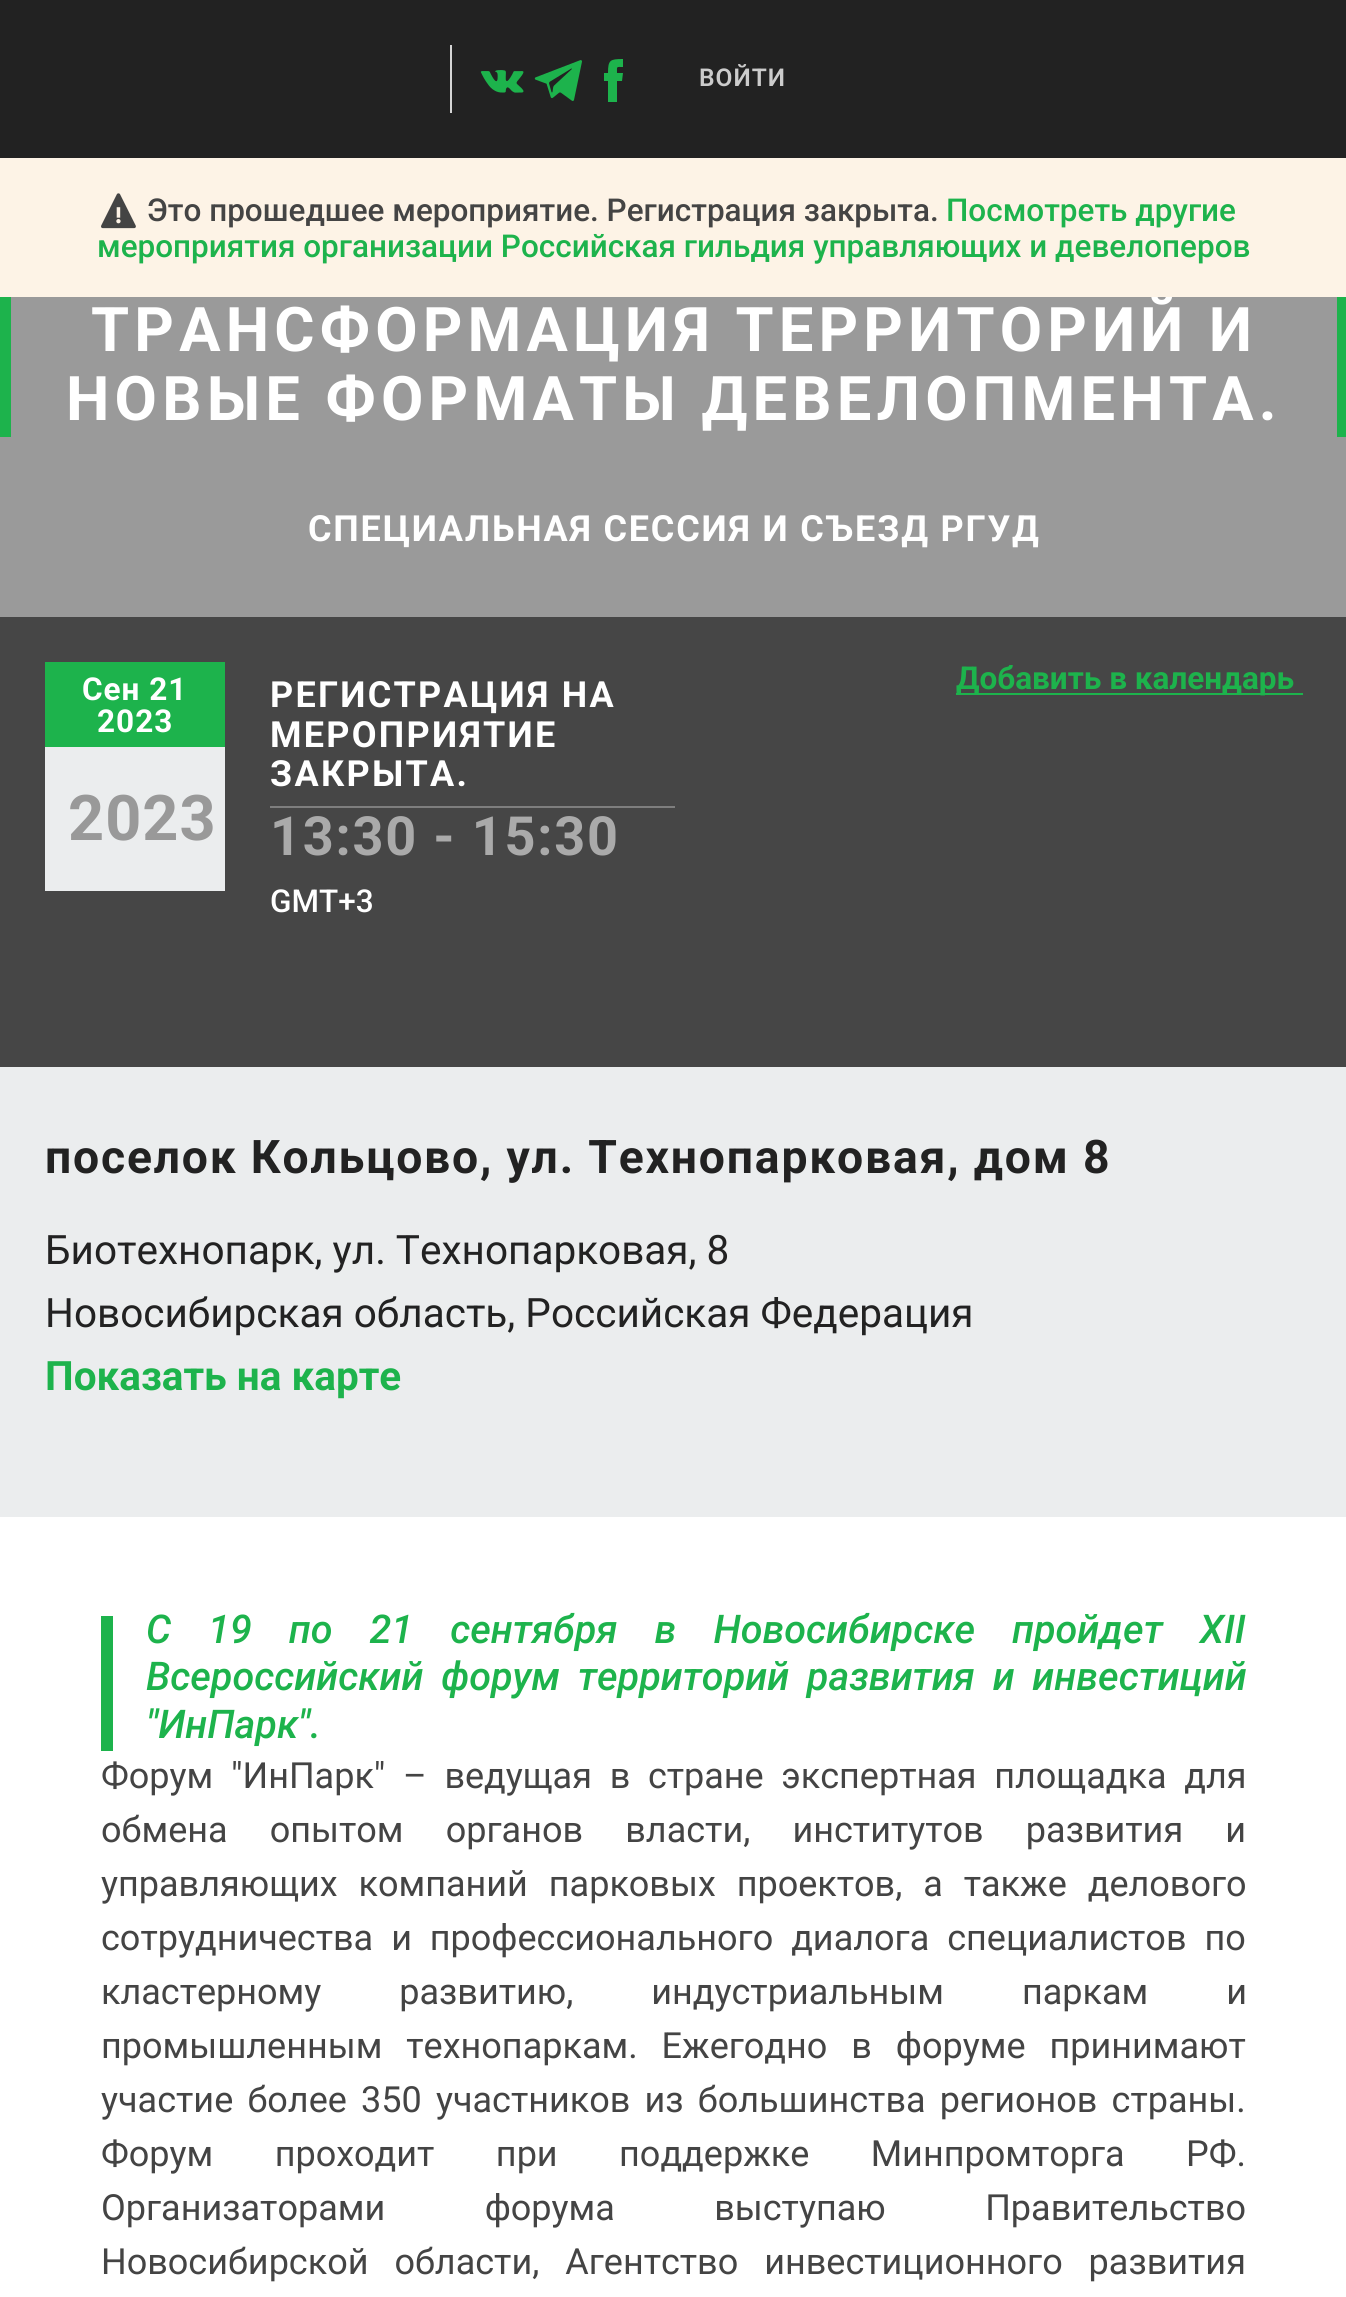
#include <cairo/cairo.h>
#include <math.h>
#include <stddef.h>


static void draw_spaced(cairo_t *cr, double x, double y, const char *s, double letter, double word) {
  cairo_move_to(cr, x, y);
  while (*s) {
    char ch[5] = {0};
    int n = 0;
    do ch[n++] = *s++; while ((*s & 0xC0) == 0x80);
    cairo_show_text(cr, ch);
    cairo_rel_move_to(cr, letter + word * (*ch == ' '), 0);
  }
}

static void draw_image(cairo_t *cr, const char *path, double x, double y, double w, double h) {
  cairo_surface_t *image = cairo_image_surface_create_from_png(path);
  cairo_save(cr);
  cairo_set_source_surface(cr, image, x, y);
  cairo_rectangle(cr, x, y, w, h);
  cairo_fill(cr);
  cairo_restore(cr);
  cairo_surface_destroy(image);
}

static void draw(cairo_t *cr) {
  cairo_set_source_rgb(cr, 1, 1, 1);
  cairo_paint(cr);
  cairo_set_source_rgb(cr, 34 / 255.0, 34 / 255.0, 34 / 255.0);
  cairo_rectangle(cr, 0, 0, 1346, 158);
  cairo_fill(cr);
  cairo_set_source_rgb(cr, 213 / 255.0, 213 / 255.0, 213 / 255.0);
  cairo_rectangle(cr, 450, 45, 2, 68);
  cairo_fill(cr);
  draw_image(cr, "images/1.png", 480, 70, 44, 23);
  draw_image(cr, "images/2.png", 534, 60, 48, 41);
  cairo_set_source_rgb(cr, 29 / 255.0, 179 / 255.0, 76 / 255.0);
  cairo_new_path(cr);
  cairo_move_to(cr, 622, 81);
  cairo_line_to(cr, 617, 81);
  cairo_line_to(cr, 617, 102);
  cairo_line_to(cr, 608, 102);
  cairo_line_to(cr, 608, 81);
  cairo_line_to(cr, 604, 81);
  cairo_line_to(cr, 604, 73);
  cairo_line_to(cr, 608, 73);
  cairo_curve_to(cr, 608, 60, 610, 59, 623, 59);
  cairo_line_to(cr, 623, 67);
  cairo_curve_to(cr, 616, 67, 617, 66, 617, 73);
  cairo_line_to(cr, 623, 73);
  cairo_close_path(cr);
  cairo_fill(cr);
  cairo_set_source_rgb(cr, 154 / 255.0, 154 / 255.0, 154 / 255.0);
  cairo_rectangle(cr, 0, 297, 1346, 320);
  cairo_fill(cr);
  cairo_set_source_rgb(cr, 29 / 255.0, 179 / 255.0, 76 / 255.0);
  cairo_rectangle(cr, 1337, 297, 9, 140);
  cairo_fill(cr);
  cairo_rectangle(cr, 0, 297, 11, 140);
  cairo_fill(cr);
  cairo_set_source_rgb(cr, 70 / 255.0, 70 / 255.0, 70 / 255.0);
  cairo_rectangle(cr, 0, 617, 1346, 450);
  cairo_fill(cr);
  cairo_set_source_rgb(cr, 29 / 255.0, 179 / 255.0, 76 / 255.0);
  cairo_rectangle(cr, 45, 662, 180, 85);
  cairo_fill(cr);
  cairo_set_source_rgb(cr, 235 / 255.0, 237 / 255.0, 238 / 255.0);
  cairo_rectangle(cr, 45, 747, 180, 144);
  cairo_fill(cr);
  cairo_set_source_rgb(cr, 126 / 255.0, 126 / 255.0, 126 / 255.0);
  cairo_rectangle(cr, 270, 806, 405, 2);
  cairo_fill(cr);
  cairo_set_source_rgb(cr, 29 / 255.0, 179 / 255.0, 76 / 255.0);
  cairo_rectangle(cr, 956, 693, 347, 2);
  cairo_fill(cr);
  cairo_set_source_rgb(cr, 235 / 255.0, 237 / 255.0, 238 / 255.0);
  cairo_rectangle(cr, 0, 1067, 1346, 450);
  cairo_fill(cr);
  cairo_set_source_rgb(cr, 29 / 255.0, 179 / 255.0, 76 / 255.0);
  cairo_rectangle(cr, 101, 1616, 12, 135);
  cairo_fill(cr);
  cairo_select_font_face(cr, "Roboto SemiBold", CAIRO_FONT_SLANT_NORMAL, CAIRO_FONT_WEIGHT_NORMAL);
  cairo_set_font_size(cr, 24.5);
  cairo_set_source_rgb(cr, 204 / 255.0, 204 / 255.0, 204 / 255.0);
  draw_spaced(cr, 699, 86, "ВОЙТИ", 1, 0);
  cairo_select_font_face(cr, "Roboto", CAIRO_FONT_SLANT_NORMAL, CAIRO_FONT_WEIGHT_BOLD);
  cairo_set_font_size(cr, 61.5);
  cairo_set_source_rgb(cr, 1, 1, 1);
  draw_spaced(cr, 91, 351, "ТРАНСФОРМАЦИЯ ТЕРРИТОРИЙ И", 5.2, 0);
  cairo_set_source_rgb(cr, 253 / 255.0, 243 / 255.0, 230 / 255.0);
  cairo_rectangle(cr, 0, 158, 1346, 139);
  cairo_fill(cr);
  cairo_select_font_face(cr, "Roboto Medium", CAIRO_FONT_SLANT_NORMAL, CAIRO_FONT_WEIGHT_NORMAL);
  cairo_set_font_size(cr, 31.5);
  cairo_set_source_rgb(cr, 29 / 255.0, 179 / 255.0, 76 / 255.0);
  cairo_move_to(cr, 97, 257);
  cairo_show_text(cr, "мероприятия организации Российская гильдия управляющих и девелоперов");
  cairo_move_to(cr, 946, 221);
  cairo_show_text(cr, "Посмотреть другие");
  cairo_set_source_rgb(cr, 68 / 255.0, 68 / 255.0, 68 / 255.0);
  cairo_move_to(cr, 147, 221);
  cairo_show_text(cr, "Это прошедшее мероприятие. Регистрация закрыта.");
  draw_image(cr, "images/3.png", 101, 193, 35, 36);
  cairo_select_font_face(cr, "Roboto", CAIRO_FONT_SLANT_NORMAL, CAIRO_FONT_WEIGHT_BOLD);
  cairo_set_font_size(cr, 61.5);
  cairo_set_source_rgb(cr, 1, 1, 1);
  draw_spaced(cr, 66, 420, "НОВЫЕ ФОРМАТЫ ДЕВЕЛОПМЕНТА.", 5.2, 0);
  cairo_set_font_size(cr, 36);
  draw_spaced(cr, 308, 541, "СПЕЦИАЛЬНАЯ СЕССИЯ И СЪЕЗД РГУД", 1.8, 0);
  cairo_set_font_size(cr, 31.5);
  draw_spaced(cr, 82, 700, "Сен 21", 1, 0);
  draw_spaced(cr, 97, 732, "2023", 1, 0);
  cairo_set_font_size(cr, 63);
  cairo_set_source_rgb(cr, 153 / 255.0, 153 / 255.0, 153 / 255.0);
  draw_spaced(cr, 68, 840, "2023", 1, 0);
  cairo_set_font_size(cr, 36);
  cairo_set_source_rgb(cr, 1, 1, 1);
  draw_spaced(cr, 270, 707, "РЕГИСТРАЦИЯ НА", 2.25, 0);
  draw_spaced(cr, 270, 747, "МЕРОПРИЯТИЕ", 2.25, 0);
  draw_spaced(cr, 270, 786, "ЗАКРЫТА.", 2.25, 0);
  cairo_set_font_size(cr, 54);
  cairo_set_source_rgb(cr, 170 / 255.0, 170 / 255.0, 170 / 255.0);
  draw_spaced(cr, 270, 855, "13:30 - 15:30", 1.8, 0);
  cairo_select_font_face(cr, "Roboto Medium", CAIRO_FONT_SLANT_NORMAL, CAIRO_FONT_WEIGHT_NORMAL);
  cairo_set_font_size(cr, 31.5);
  cairo_set_source_rgb(cr, 1, 1, 1);
  cairo_move_to(cr, 270, 912);
  cairo_show_text(cr, "GMT+3");
  cairo_select_font_face(cr, "Roboto", CAIRO_FONT_SLANT_NORMAL, CAIRO_FONT_WEIGHT_BOLD);
  cairo_set_source_rgb(cr, 29 / 255.0, 179 / 255.0, 76 / 255.0);
  cairo_move_to(cr, 956, 689);
  cairo_show_text(cr, "Добавить в календарь");
  cairo_set_font_size(cr, 46.3);
  cairo_set_source_rgb(cr, 34 / 255.0, 34 / 255.0, 34 / 255.0);
  draw_spaced(cr, 45, 1173, "поселок Кольцово, ул. Технопарковая, дом 8", 1.8, 0);
  cairo_select_font_face(cr, "Roboto", CAIRO_FONT_SLANT_NORMAL, CAIRO_FONT_WEIGHT_NORMAL);
  cairo_set_font_size(cr, 40.5);
  cairo_move_to(cr, 45, 1264);
  cairo_show_text(cr, "Биотехнопарк, ул. Технопарковая, 8");
  cairo_move_to(cr, 45, 1327);
  cairo_show_text(cr, "Новосибирская область, Российская Федерация");
  cairo_select_font_face(cr, "Roboto", CAIRO_FONT_SLANT_NORMAL, CAIRO_FONT_WEIGHT_BOLD);
  cairo_set_source_rgb(cr, 29 / 255.0, 179 / 255.0, 76 / 255.0);
  cairo_move_to(cr, 45, 1390);
  cairo_show_text(cr, "Показать на карте");
  cairo_select_font_face(cr, "Roboto Medium", CAIRO_FONT_SLANT_ITALIC, CAIRO_FONT_WEIGHT_NORMAL);
  cairo_set_font_size(cr, 39.6);
  draw_spaced(cr, 146, 1643, "С 19 по 21 сентября в Новосибирске пройдет XII", 0, 27.25);
  draw_spaced(cr, 146, 1690, "Всероссийский форум территорий развития и инвестиций", 0, 8);
  cairo_move_to(cr, 146, 1738);
  cairo_show_text(cr, "\"ИнПарк\".");
  cairo_select_font_face(cr, "Roboto", CAIRO_FONT_SLANT_NORMAL, CAIRO_FONT_WEIGHT_NORMAL);
  cairo_set_font_size(cr, 36);
  cairo_set_source_rgb(cr, 68 / 255.0, 68 / 255.0, 68 / 255.0);
  draw_spaced(cr, 101, 1788, "Форум \"ИнПарк\" – ведущая в стране экспертная площадка для", 0, 8.75);
  draw_spaced(cr, 101, 1842, "обмена опытом органов власти, институтов развития и", 0, 33.25);
  draw_spaced(cr, 101, 1896, "управляющих компаний парковых проектов, а также делового", 0, 12);
  draw_spaced(cr, 101, 1950, "сотрудничества и профессионального диалога специалистов по", 0, 9);
  draw_spaced(cr, 101, 2004, "кластерному развитию, индустриальным паркам и", 0, 69);
  draw_spaced(cr, 101, 2058, "промышленным технопаркам. Ежегодно в форуме принимают", 0, 15);
  draw_spaced(cr, 101, 2112, "участие более 350 участников из большинства регионов страны.", 0, 5.25);
  draw_spaced(cr, 101, 2166, "Форум проходит при поддержке Минпромторга РФ.", 0, 52.5);
  draw_spaced(cr, 101, 2220, "Организаторами форума выступаю Правительство", 0, 90.5);
  draw_spaced(cr, 101, 2274, "Новосибирской области, Агентство инвестиционного развития", 0, 17);
}

int main(void) {
  cairo_surface_t *surface = cairo_image_surface_create(CAIRO_FORMAT_RGB24, 1346, 2297);
  cairo_t *cr = cairo_create(surface);
  cairo_font_options_t *options = cairo_font_options_create();
  cairo_font_options_set_hint_metrics(options, CAIRO_HINT_METRICS_OFF);
  cairo_font_options_set_hint_style(options, CAIRO_HINT_STYLE_NONE);
  cairo_set_font_options(cr, options);
  cairo_set_miter_limit(cr, 4);
  draw(cr);
  cairo_surface_write_to_png(surface, "out.png");
  cairo_font_options_destroy(options);
  cairo_destroy(cr);
  cairo_surface_destroy(surface);
  return 0;
}
